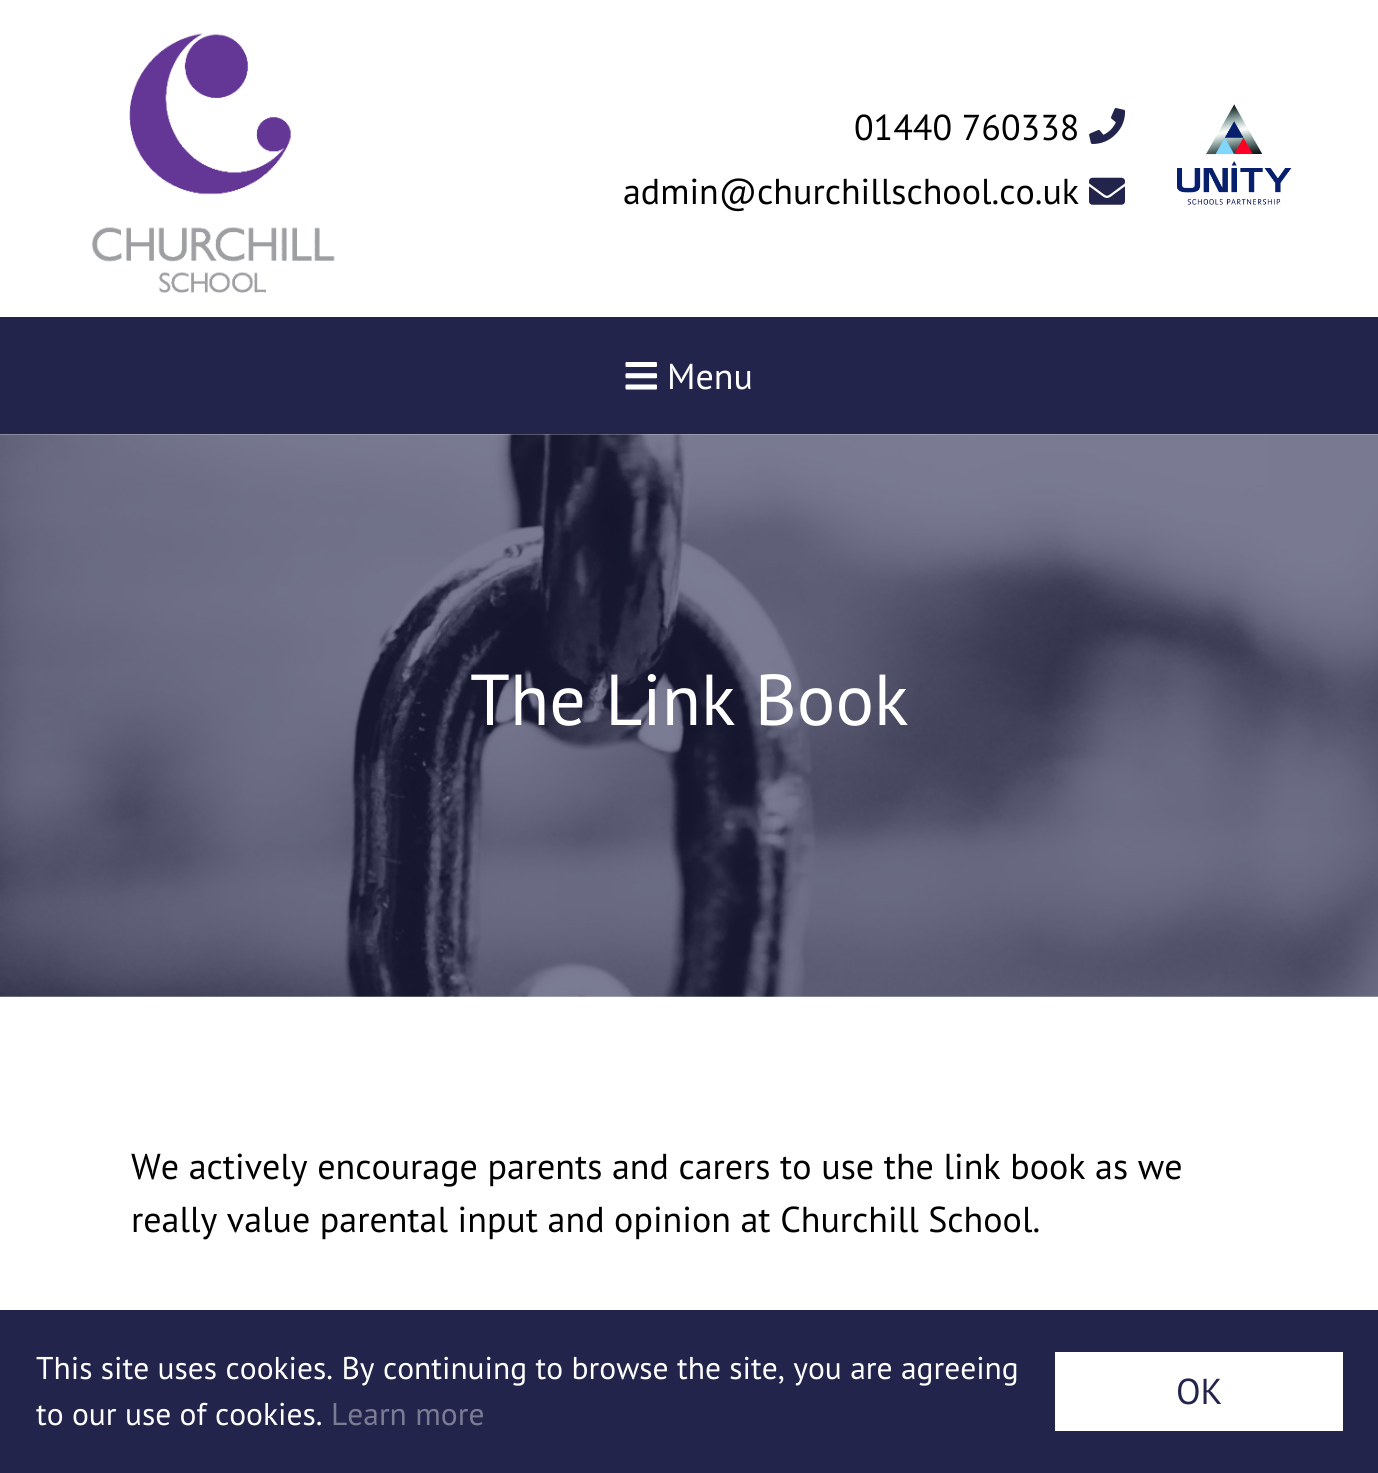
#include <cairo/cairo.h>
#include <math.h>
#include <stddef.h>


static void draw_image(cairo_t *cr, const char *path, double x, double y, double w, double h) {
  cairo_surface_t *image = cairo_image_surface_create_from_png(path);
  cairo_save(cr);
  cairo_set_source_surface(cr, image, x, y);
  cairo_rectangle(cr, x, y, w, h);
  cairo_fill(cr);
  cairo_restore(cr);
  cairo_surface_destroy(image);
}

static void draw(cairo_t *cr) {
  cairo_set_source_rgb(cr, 1, 1, 1);
  cairo_paint(cr);
  draw_image(cr, "images/1.png", 91, 33, 244, 260);
  draw_image(cr, "images/2.png", 1089, 108, 37, 36);
  draw_image(cr, "images/3.png", 1089, 177, 36, 28);
  draw_image(cr, "images/4.png", 1177, 104, 115, 101);
  cairo_set_source_rgb(cr, 34 / 255.0, 36 / 255.0, 75 / 255.0);
  cairo_rectangle(cr, 0, 317, 1378, 117);
  cairo_fill(cr);
  draw_image(cr, "images/5.png", 625, 362, 32, 28);
  draw_image(cr, "images/6.png", 0, 434, 1378, 563);
  cairo_rectangle(cr, 0, 1310, 1378, 163);
  cairo_fill(cr);
  cairo_set_source_rgb(cr, 1, 1, 1);
  cairo_rectangle(cr, 1055, 1352, 288, 79);
  cairo_fill(cr);
  cairo_select_font_face(cr, "PT Sans", CAIRO_FONT_SLANT_NORMAL, CAIRO_FONT_WEIGHT_NORMAL);
  cairo_set_font_size(cr, 36);
  cairo_set_source_rgb(cr, 0, 0, 0);
  cairo_move_to(cr, 854, 140);
  cairo_show_text(cr, "01440 760338");
  cairo_move_to(cr, 623, 204);
  cairo_show_text(cr, "admin@churchillschool.co.uk");
  cairo_set_source_rgb(cr, 1, 1, 1);
  cairo_move_to(cr, 667, 389);
  cairo_show_text(cr, "Menu");
  cairo_set_font_size(cr, 72);
  cairo_move_to(cr, 470, 725);
  cairo_show_text(cr, "The Link Book");
  cairo_set_font_size(cr, 36);
  cairo_set_source_rgb(cr, 0, 0, 0);
  cairo_move_to(cr, 131, 1179);
  cairo_show_text(cr, "We actively encourage parents and carers to use the link book as we");
  cairo_move_to(cr, 131, 1232);
  cairo_show_text(cr, "really value parental input and opinion at Churchill School.");
  cairo_set_font_size(cr, 31.5);
  cairo_set_source_rgb(cr, 1, 1, 1);
  cairo_move_to(cr, 36, 1379);
  cairo_show_text(cr, "This site uses cookies. By continuing to browse the site, you are agreeing");
  cairo_move_to(cr, 36, 1425);
  cairo_show_text(cr, "to our use of cookies.");
  cairo_set_source_rgb(cr, 122 / 255.0, 124 / 255.0, 147 / 255.0);
  cairo_move_to(cr, 331, 1425);
  cairo_show_text(cr, "Learn more");
  cairo_set_font_size(cr, 36);
  cairo_set_source_rgb(cr, 34 / 255.0, 36 / 255.0, 75 / 255.0);
  cairo_move_to(cr, 1176, 1404);
  cairo_show_text(cr, "OK");
}

int main(void) {
  cairo_surface_t *surface = cairo_image_surface_create(CAIRO_FORMAT_RGB24, 1378, 1473);
  cairo_t *cr = cairo_create(surface);
  cairo_font_options_t *options = cairo_font_options_create();
  cairo_font_options_set_hint_metrics(options, CAIRO_HINT_METRICS_OFF);
  cairo_font_options_set_hint_style(options, CAIRO_HINT_STYLE_NONE);
  cairo_set_font_options(cr, options);
  cairo_set_miter_limit(cr, 4);
  draw(cr);
  cairo_surface_write_to_png(surface, "out.png");
  cairo_font_options_destroy(options);
  cairo_destroy(cr);
  cairo_surface_destroy(surface);
  return 0;
}
